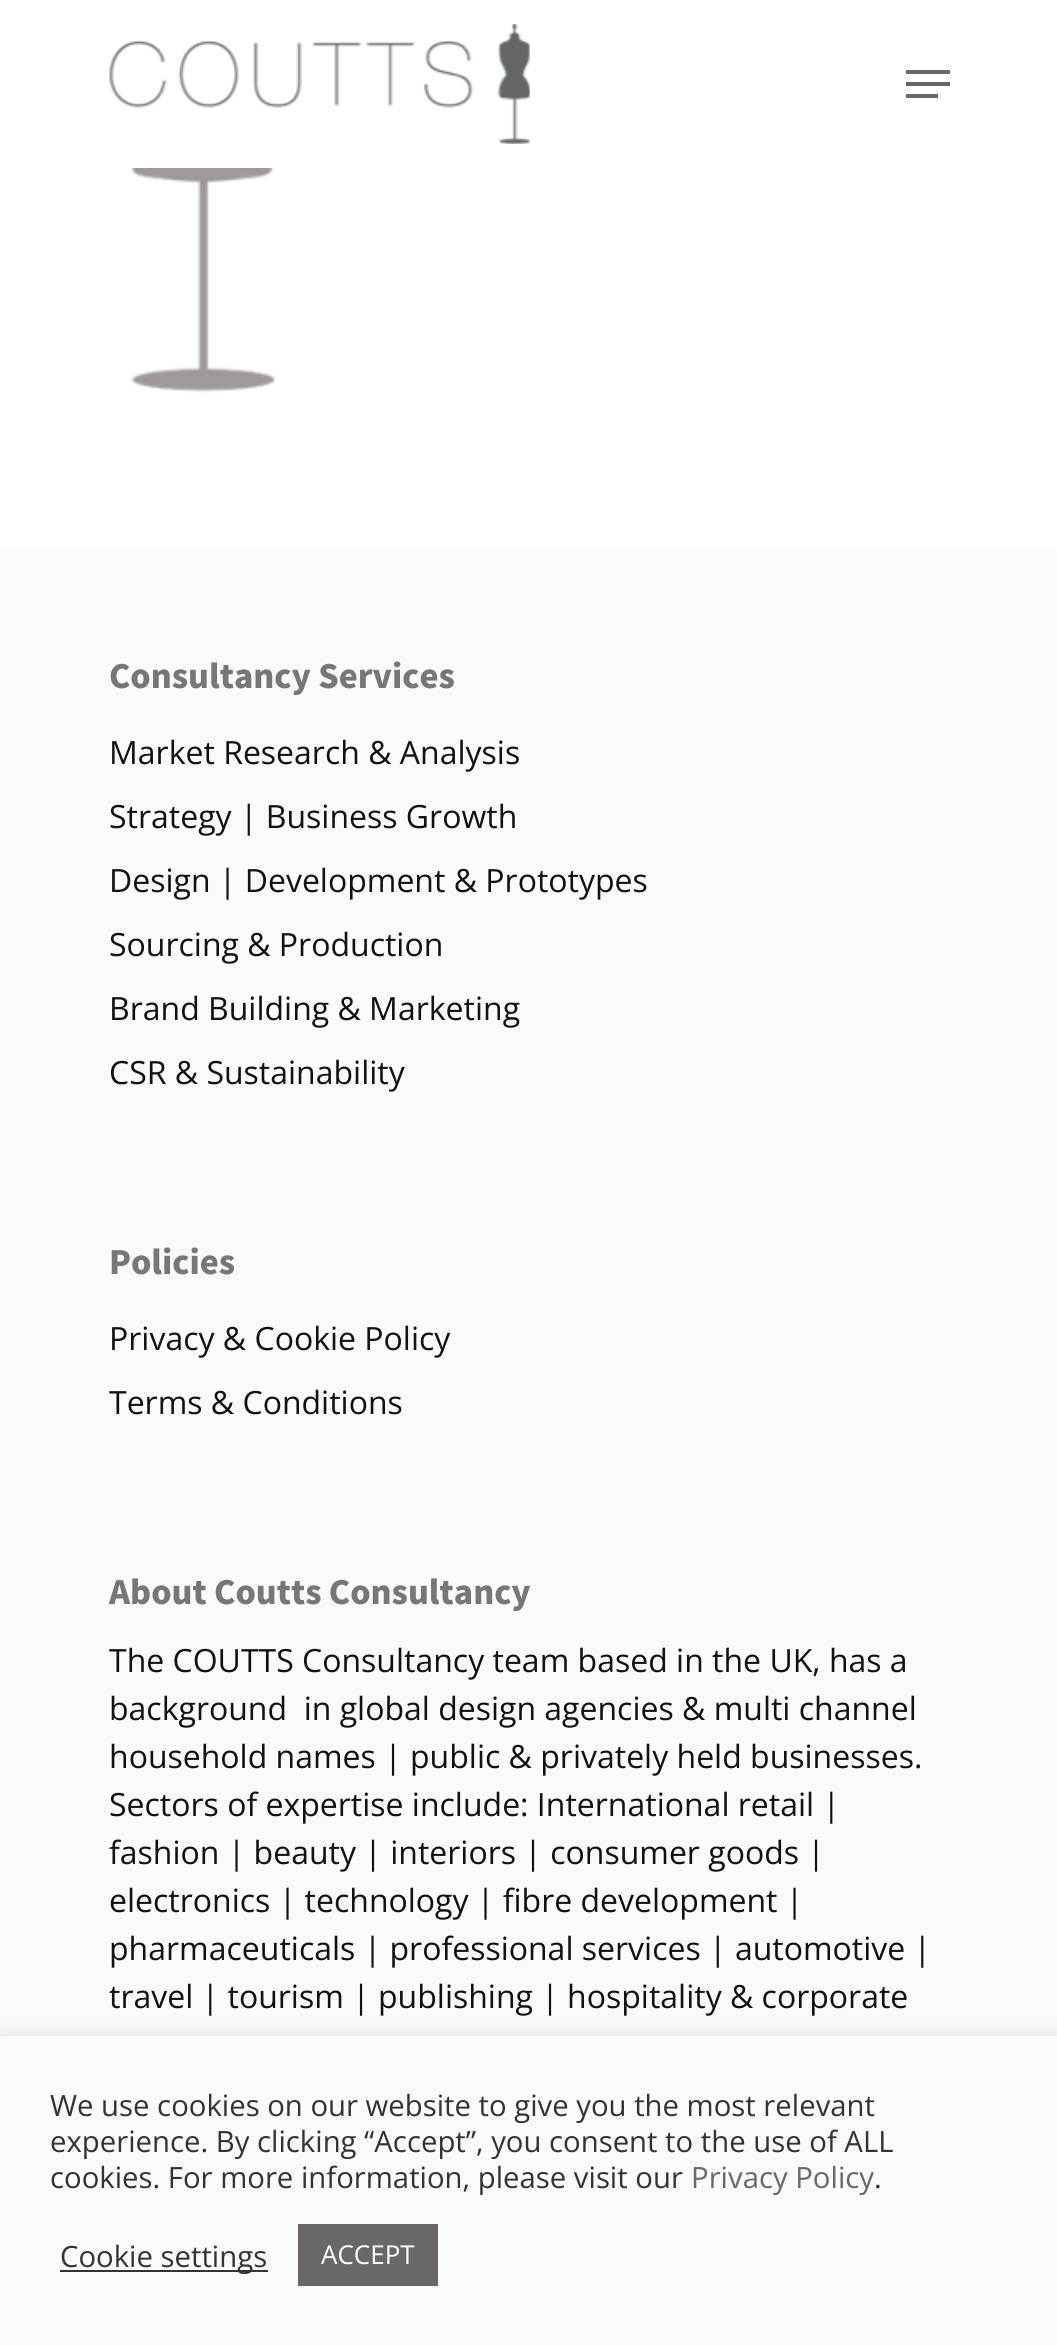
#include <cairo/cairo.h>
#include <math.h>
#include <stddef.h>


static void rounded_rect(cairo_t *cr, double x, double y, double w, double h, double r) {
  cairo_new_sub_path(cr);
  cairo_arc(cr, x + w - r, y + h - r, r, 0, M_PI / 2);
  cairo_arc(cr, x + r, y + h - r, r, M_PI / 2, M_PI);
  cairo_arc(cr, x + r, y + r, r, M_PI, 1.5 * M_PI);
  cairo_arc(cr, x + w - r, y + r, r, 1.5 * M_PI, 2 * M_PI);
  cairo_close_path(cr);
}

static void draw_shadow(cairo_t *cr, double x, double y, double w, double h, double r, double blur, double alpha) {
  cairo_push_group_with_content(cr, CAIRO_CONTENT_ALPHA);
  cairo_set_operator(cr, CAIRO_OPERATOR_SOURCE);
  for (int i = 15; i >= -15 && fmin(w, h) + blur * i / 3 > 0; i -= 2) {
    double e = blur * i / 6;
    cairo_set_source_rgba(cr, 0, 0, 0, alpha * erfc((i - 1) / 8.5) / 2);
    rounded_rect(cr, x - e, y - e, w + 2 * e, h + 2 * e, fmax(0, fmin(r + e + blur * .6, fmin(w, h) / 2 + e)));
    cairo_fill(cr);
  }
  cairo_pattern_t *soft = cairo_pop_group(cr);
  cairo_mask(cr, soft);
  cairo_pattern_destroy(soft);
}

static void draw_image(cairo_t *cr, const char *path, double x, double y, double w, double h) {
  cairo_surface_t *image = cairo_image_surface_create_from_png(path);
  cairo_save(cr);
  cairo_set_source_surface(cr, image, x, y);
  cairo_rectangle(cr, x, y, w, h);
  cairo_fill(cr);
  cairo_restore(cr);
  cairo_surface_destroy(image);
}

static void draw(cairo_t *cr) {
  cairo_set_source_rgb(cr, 1, 1, 1);
  cairo_paint(cr);
  draw_image(cr, "images/1.png", 109, 24, 421, 120);
  cairo_set_source_rgb(cr, 107 / 255.0, 103 / 255.0, 103 / 255.0);
  cairo_rectangle(cr, 906, 70, 44, 4);
  cairo_fill(cr);
  cairo_rectangle(cr, 906, 94, 32, 4);
  cairo_fill(cr);
  cairo_rectangle(cr, 906, 82, 44, 4);
  cairo_fill(cr);
  draw_image(cr, "images/2.png", 130, 168, 146, 225);
  cairo_set_source_rgb(cr, 250 / 255.0, 250 / 255.0, 250 / 255.0);
  cairo_rectangle(cr, 0, 548, 1057, 1488);
  cairo_fill(cr);
  cairo_set_source_rgb(cr, 172 / 255.0, 171 / 255.0, 171 / 255.0);
  draw_shadow(cr, 0, 2034, 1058, 310, 0, 10, 0.3);
  cairo_set_source_rgb(cr, 250 / 255.0, 250 / 255.0, 250 / 255.0);
  cairo_rectangle(cr, 0, 2036, 1057, 309);
  cairo_fill(cr);
  cairo_set_source_rgb(cr, 51 / 255.0, 51 / 255.0, 51 / 255.0);
  cairo_rectangle(cr, 60, 2270, 208, 2);
  cairo_fill(cr);
  cairo_set_source_rgb(cr, 107 / 255.0, 103 / 255.0, 103 / 255.0);
  cairo_rectangle(cr, 298, 2224, 140, 62);
  cairo_fill(cr);
  cairo_select_font_face(cr, "Noto Sans JP Thin", CAIRO_FONT_SLANT_NORMAL, CAIRO_FONT_WEIGHT_NORMAL);
  cairo_set_font_size(cr, 32);
  cairo_set_source_rgb(cr, 119 / 255.0, 119 / 255.0, 119 / 255.0);
  cairo_move_to(cr, 109, 688);
  cairo_show_text(cr, "Consultancy Services");
  cairo_select_font_face(cr, "Open Sans", CAIRO_FONT_SLANT_NORMAL, CAIRO_FONT_WEIGHT_NORMAL);
  cairo_set_source_rgb(cr, 17 / 255.0, 17 / 255.0, 17 / 255.0);
  cairo_move_to(cr, 109, 764);
  cairo_show_text(cr, "Market Research & Analysis");
  cairo_move_to(cr, 109, 828);
  cairo_show_text(cr, "Strategy | Business Growth");
  cairo_move_to(cr, 109, 892);
  cairo_show_text(cr, "Design | Development & Prototypes");
  cairo_move_to(cr, 109, 956);
  cairo_show_text(cr, "Sourcing & Production");
  cairo_move_to(cr, 109, 1020);
  cairo_show_text(cr, "Brand Building & Marketing");
  cairo_move_to(cr, 109, 1084);
  cairo_show_text(cr, "CSR & Sustainability");
  cairo_select_font_face(cr, "Noto Sans JP Thin", CAIRO_FONT_SLANT_NORMAL, CAIRO_FONT_WEIGHT_NORMAL);
  cairo_set_source_rgb(cr, 119 / 255.0, 119 / 255.0, 119 / 255.0);
  cairo_move_to(cr, 109, 1274);
  cairo_show_text(cr, "Policies");
  cairo_select_font_face(cr, "Open Sans", CAIRO_FONT_SLANT_NORMAL, CAIRO_FONT_WEIGHT_NORMAL);
  cairo_set_source_rgb(cr, 17 / 255.0, 17 / 255.0, 17 / 255.0);
  cairo_move_to(cr, 109, 1350);
  cairo_show_text(cr, "Privacy & Cookie Policy");
  cairo_move_to(cr, 109, 1414);
  cairo_show_text(cr, "Terms & Conditions");
  cairo_select_font_face(cr, "Noto Sans JP Thin", CAIRO_FONT_SLANT_NORMAL, CAIRO_FONT_WEIGHT_NORMAL);
  cairo_set_source_rgb(cr, 119 / 255.0, 119 / 255.0, 119 / 255.0);
  cairo_move_to(cr, 109, 1604);
  cairo_show_text(cr, "About Coutts Consultancy");
  cairo_select_font_face(cr, "Open Sans", CAIRO_FONT_SLANT_NORMAL, CAIRO_FONT_WEIGHT_NORMAL);
  cairo_set_source_rgb(cr, 17 / 255.0, 17 / 255.0, 17 / 255.0);
  cairo_move_to(cr, 109, 1672);
  cairo_show_text(cr, "The COUTTS Consultancy team based in the UK, has a");
  cairo_move_to(cr, 109, 1720);
  cairo_show_text(cr, "background  in global design agencies & multi channel");
  cairo_move_to(cr, 109, 1768);
  cairo_show_text(cr, "household names | public & privately held businesses.");
  cairo_move_to(cr, 109, 1816);
  cairo_show_text(cr, "Sectors of expertise include: International retail |");
  cairo_move_to(cr, 109, 1864);
  cairo_show_text(cr, "fashion | beauty | interiors | consumer goods |");
  cairo_move_to(cr, 109, 1912);
  cairo_show_text(cr, "electronics | technology | fibre development |");
  cairo_move_to(cr, 109, 1960);
  cairo_show_text(cr, "pharmaceuticals | professional services | automotive |");
  cairo_move_to(cr, 109, 2008);
  cairo_show_text(cr, "travel | tourism | publishing | hospitality & corporate");
  cairo_set_font_size(cr, 29.3);
  cairo_set_source_rgb(cr, 51 / 255.0, 51 / 255.0, 51 / 255.0);
  cairo_move_to(cr, 50, 2116);
  cairo_show_text(cr, "We use cookies on our website to give you the most relevant");
  cairo_move_to(cr, 50, 2152);
  cairo_show_text(cr, "experience. By clicking “Accept”, you consent to the use of ALL");
  cairo_move_to(cr, 50, 2188);
  cairo_show_text(cr, "cookies. For more information, please visit our");
  cairo_set_source_rgb(cr, 107 / 255.0, 103 / 255.0, 103 / 255.0);
  cairo_move_to(cr, 691, 2188);
  cairo_show_text(cr, "Privacy Policy");
  cairo_set_source_rgb(cr, 51 / 255.0, 51 / 255.0, 51 / 255.0);
  cairo_move_to(cr, 874, 2188);
  cairo_show_text(cr, ".");
  cairo_move_to(cr, 60, 2267);
  cairo_show_text(cr, "Cookie settings");
  cairo_set_font_size(cr, 26);
  cairo_set_source_rgb(cr, 1, 1, 1);
  cairo_move_to(cr, 321, 2264);
  cairo_show_text(cr, "ACCEPT");
}

int main(void) {
  cairo_surface_t *surface = cairo_image_surface_create(CAIRO_FORMAT_RGB24, 1057, 2345);
  cairo_t *cr = cairo_create(surface);
  cairo_font_options_t *options = cairo_font_options_create();
  cairo_font_options_set_hint_metrics(options, CAIRO_HINT_METRICS_OFF);
  cairo_font_options_set_hint_style(options, CAIRO_HINT_STYLE_NONE);
  cairo_set_font_options(cr, options);
  cairo_set_miter_limit(cr, 4);
  draw(cr);
  cairo_surface_write_to_png(surface, "out.png");
  cairo_font_options_destroy(options);
  cairo_destroy(cr);
  cairo_surface_destroy(surface);
  return 0;
}
